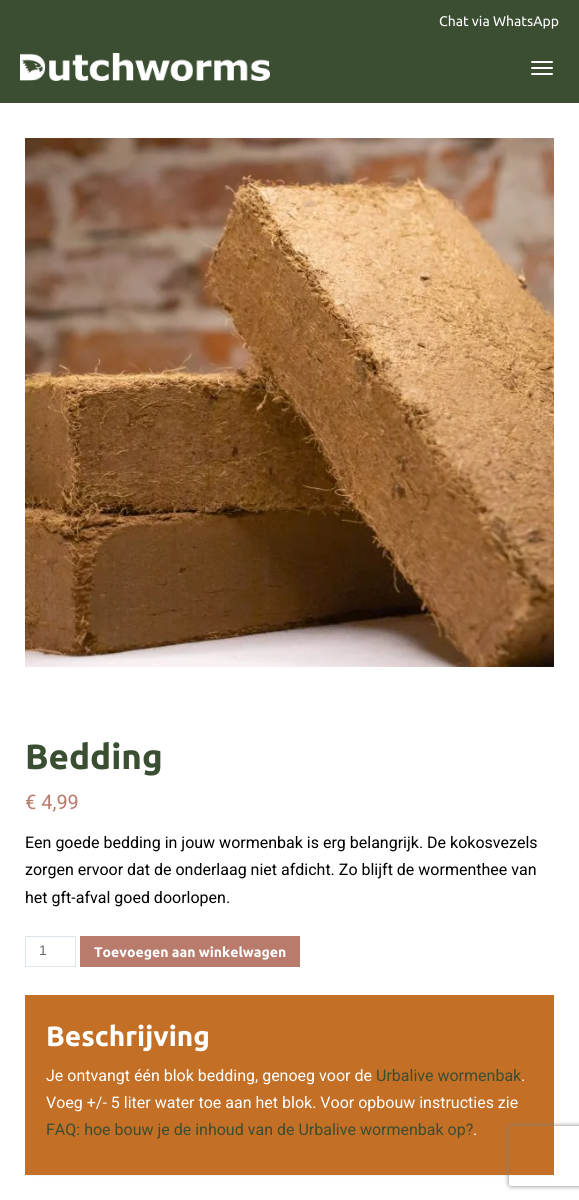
#include <cairo/cairo.h>
#include <math.h>
#include <stddef.h>


static void rounded_rect(cairo_t *cr, double x, double y, double w, double h, double r) {
  cairo_new_sub_path(cr);
  cairo_arc(cr, x + w - r, y + h - r, r, 0, M_PI / 2);
  cairo_arc(cr, x + r, y + h - r, r, M_PI / 2, M_PI);
  cairo_arc(cr, x + r, y + r, r, M_PI, 1.5 * M_PI);
  cairo_arc(cr, x + w - r, y + r, r, 1.5 * M_PI, 2 * M_PI);
  cairo_close_path(cr);
}

static void draw_shadow(cairo_t *cr, double x, double y, double w, double h, double r, double blur, double alpha) {
  cairo_push_group_with_content(cr, CAIRO_CONTENT_ALPHA);
  cairo_set_operator(cr, CAIRO_OPERATOR_SOURCE);
  for (int i = 15; i >= -15 && fmin(w, h) + blur * i / 3 > 0; i -= 2) {
    double e = blur * i / 6;
    cairo_set_source_rgba(cr, 0, 0, 0, alpha * erfc((i - 1) / 8.5) / 2);
    rounded_rect(cr, x - e, y - e, w + 2 * e, h + 2 * e, fmax(0, fmin(r + e + blur * .6, fmin(w, h) / 2 + e)));
    cairo_fill(cr);
  }
  cairo_pattern_t *soft = cairo_pop_group(cr);
  cairo_mask(cr, soft);
  cairo_pattern_destroy(soft);
}

static void draw_image(cairo_t *cr, const char *path, double x, double y, double w, double h) {
  cairo_surface_t *image = cairo_image_surface_create_from_png(path);
  cairo_save(cr);
  cairo_set_source_surface(cr, image, x, y);
  cairo_rectangle(cr, x, y, w, h);
  cairo_fill(cr);
  cairo_restore(cr);
  cairo_surface_destroy(image);
}

static void draw(cairo_t *cr) {
  cairo_set_source_rgb(cr, 1, 1, 1);
  cairo_paint(cr);
  cairo_set_source_rgb(cr, 59 / 255.0, 78 / 255.0, 50 / 255.0);
  cairo_rectangle(cr, 0, 0, 579, 103);
  cairo_fill(cr);
  draw_image(cr, "images/1.png", 20, 53, 250, 28);
  cairo_set_source_rgb(cr, 1, 1, 1);
  rounded_rect(cr, 531, 61, 22, 2, 1);
  cairo_fill(cr);
  rounded_rect(cr, 531, 67, 22, 2, 1);
  cairo_fill(cr);
  rounded_rect(cr, 531, 73, 22, 2, 1);
  cairo_fill(cr);
  draw_image(cr, "images/2.png", 25, 138, 529, 529);
  cairo_rectangle(cr, 25.5, 936.5, 50, 30);
  cairo_set_source_rgb(cr, 220 / 255.0, 228 / 255.0, 236 / 255.0);
  cairo_set_line_width(cr, 1);
  cairo_stroke(cr);
  cairo_set_source_rgb(cr, 185 / 255.0, 123 / 255.0, 108 / 255.0);
  cairo_rectangle(cr, 80, 936, 220, 31);
  cairo_fill(cr);
  cairo_set_source_rgb(cr, 0, 0, 0);
  draw_shadow(cr, 25, 996, 529, 180, 0, 0.5, 0.05);
  cairo_set_source_rgb(cr, 195 / 255.0, 111 / 255.0, 38 / 255.0);
  cairo_rectangle(cr, 25, 995, 529, 180);
  cairo_fill(cr);
  cairo_save(cr);
  cairo_set_fill_rule(cr, CAIRO_FILL_RULE_EVEN_ODD);
  cairo_new_path(cr);
  cairo_move_to(cr, 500, 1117);
  cairo_line_to(cr, 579, 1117);
  cairo_line_to(cr, 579, 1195);
  cairo_line_to(cr, 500, 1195);
  cairo_close_path(cr);
  cairo_move_to(cr, 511, 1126);
  cairo_line_to(cr, 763, 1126);
  cairo_curve_to(cr, 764, 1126, 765, 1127, 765, 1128);
  cairo_line_to(cr, 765, 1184);
  cairo_curve_to(cr, 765, 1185, 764, 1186, 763, 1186);
  cairo_line_to(cr, 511, 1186);
  cairo_curve_to(cr, 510, 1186, 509, 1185, 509, 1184);
  cairo_line_to(cr, 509, 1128);
  cairo_curve_to(cr, 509, 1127, 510, 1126, 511, 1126);
  cairo_close_path(cr);
  cairo_clip(cr);
  cairo_set_source_rgb(cr, 128 / 255.0, 128 / 255.0, 128 / 255.0);
  draw_shadow(cr, 509, 1126, 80, 60, 2, 2.5, 1);
  cairo_restore(cr);
  cairo_select_font_face(cr, "Ubuntu", CAIRO_FONT_SLANT_NORMAL, CAIRO_FONT_WEIGHT_NORMAL);
  cairo_set_font_size(cr, 14);
  cairo_set_source_rgb(cr, 1, 1, 1);
  cairo_move_to(cr, 439, 26);
  cairo_show_text(cr, "Chat via WhatsApp");
  cairo_select_font_face(cr, "Ubuntu", CAIRO_FONT_SLANT_NORMAL, CAIRO_FONT_WEIGHT_BOLD);
  cairo_set_font_size(cr, 35);
  cairo_set_source_rgb(cr, 58 / 255.0, 78 / 255.0, 50 / 255.0);
  cairo_move_to(cr, 25, 769);
  cairo_show_text(cr, "Bedding");
  cairo_select_font_face(cr, "Roboto", CAIRO_FONT_SLANT_NORMAL, CAIRO_FONT_WEIGHT_NORMAL);
  cairo_set_font_size(cr, 20);
  cairo_set_source_rgb(cr, 185 / 255.0, 123 / 255.0, 108 / 255.0);
  cairo_move_to(cr, 25, 809);
  cairo_show_text(cr, "€ 4,99");
  cairo_set_font_size(cr, 16);
  cairo_set_source_rgb(cr, 0, 0, 0);
  cairo_move_to(cr, 25, 848);
  cairo_show_text(cr, "Een goede bedding in jouw wormenbak is erg belangrijk. De kokosvezels");
  cairo_move_to(cr, 25, 875);
  cairo_show_text(cr, "zorgen ervoor dat de onderlaag niet afdicht. Zo blijft de wormenthee van");
  cairo_move_to(cr, 25, 903);
  cairo_show_text(cr, "het gft-afval goed doorlopen.");
  cairo_select_font_face(cr, "Liberation Sans", CAIRO_FONT_SLANT_NORMAL, CAIRO_FONT_WEIGHT_NORMAL);
  cairo_set_font_size(cr, 14);
  cairo_set_source_rgb(cr, 107 / 255.0, 107 / 255.0, 107 / 255.0);
  cairo_move_to(cr, 39, 955);
  cairo_show_text(cr, "1");
  cairo_select_font_face(cr, "Ubuntu", CAIRO_FONT_SLANT_NORMAL, CAIRO_FONT_WEIGHT_BOLD);
  cairo_set_source_rgb(cr, 1, 1, 1);
  cairo_move_to(cr, 94, 957);
  cairo_show_text(cr, "Toevoegen aan winkelwagen");
  cairo_set_font_size(cr, 28);
  cairo_move_to(cr, 46, 1046);
  cairo_show_text(cr, "Beschrijving");
  cairo_select_font_face(cr, "Roboto", CAIRO_FONT_SLANT_NORMAL, CAIRO_FONT_WEIGHT_NORMAL);
  cairo_set_font_size(cr, 16);
  cairo_move_to(cr, 46, 1081);
  cairo_show_text(cr, "Je ontvangt één blok bedding, genoeg voor de");
  cairo_set_source_rgb(cr, 58 / 255.0, 78 / 255.0, 50 / 255.0);
  cairo_move_to(cr, 376, 1081);
  cairo_show_text(cr, "Urbalive wormenbak");
  cairo_set_source_rgb(cr, 1, 1, 1);
  cairo_move_to(cr, 521, 1081);
  cairo_show_text(cr, ".");
  cairo_move_to(cr, 46, 1108);
  cairo_show_text(cr, "Voeg +/- 5 liter water toe aan het blok. Voor opbouw instructies zie");
  cairo_set_source_rgb(cr, 58 / 255.0, 78 / 255.0, 50 / 255.0);
  cairo_move_to(cr, 46, 1135);
  cairo_show_text(cr, "FAQ: hoe bouw je de inhoud van de Urbalive wormenbak op?");
  cairo_set_source_rgb(cr, 1, 1, 1);
  cairo_move_to(cr, 473, 1135);
  cairo_show_text(cr, ".");
}

int main(void) {
  cairo_surface_t *surface = cairo_image_surface_create(CAIRO_FORMAT_RGB24, 579, 1200);
  cairo_t *cr = cairo_create(surface);
  cairo_font_options_t *options = cairo_font_options_create();
  cairo_font_options_set_hint_metrics(options, CAIRO_HINT_METRICS_OFF);
  cairo_font_options_set_hint_style(options, CAIRO_HINT_STYLE_NONE);
  cairo_set_font_options(cr, options);
  cairo_set_miter_limit(cr, 4);
  draw(cr);
  cairo_surface_write_to_png(surface, "out.png");
  cairo_font_options_destroy(options);
  cairo_destroy(cr);
  cairo_surface_destroy(surface);
  return 0;
}
